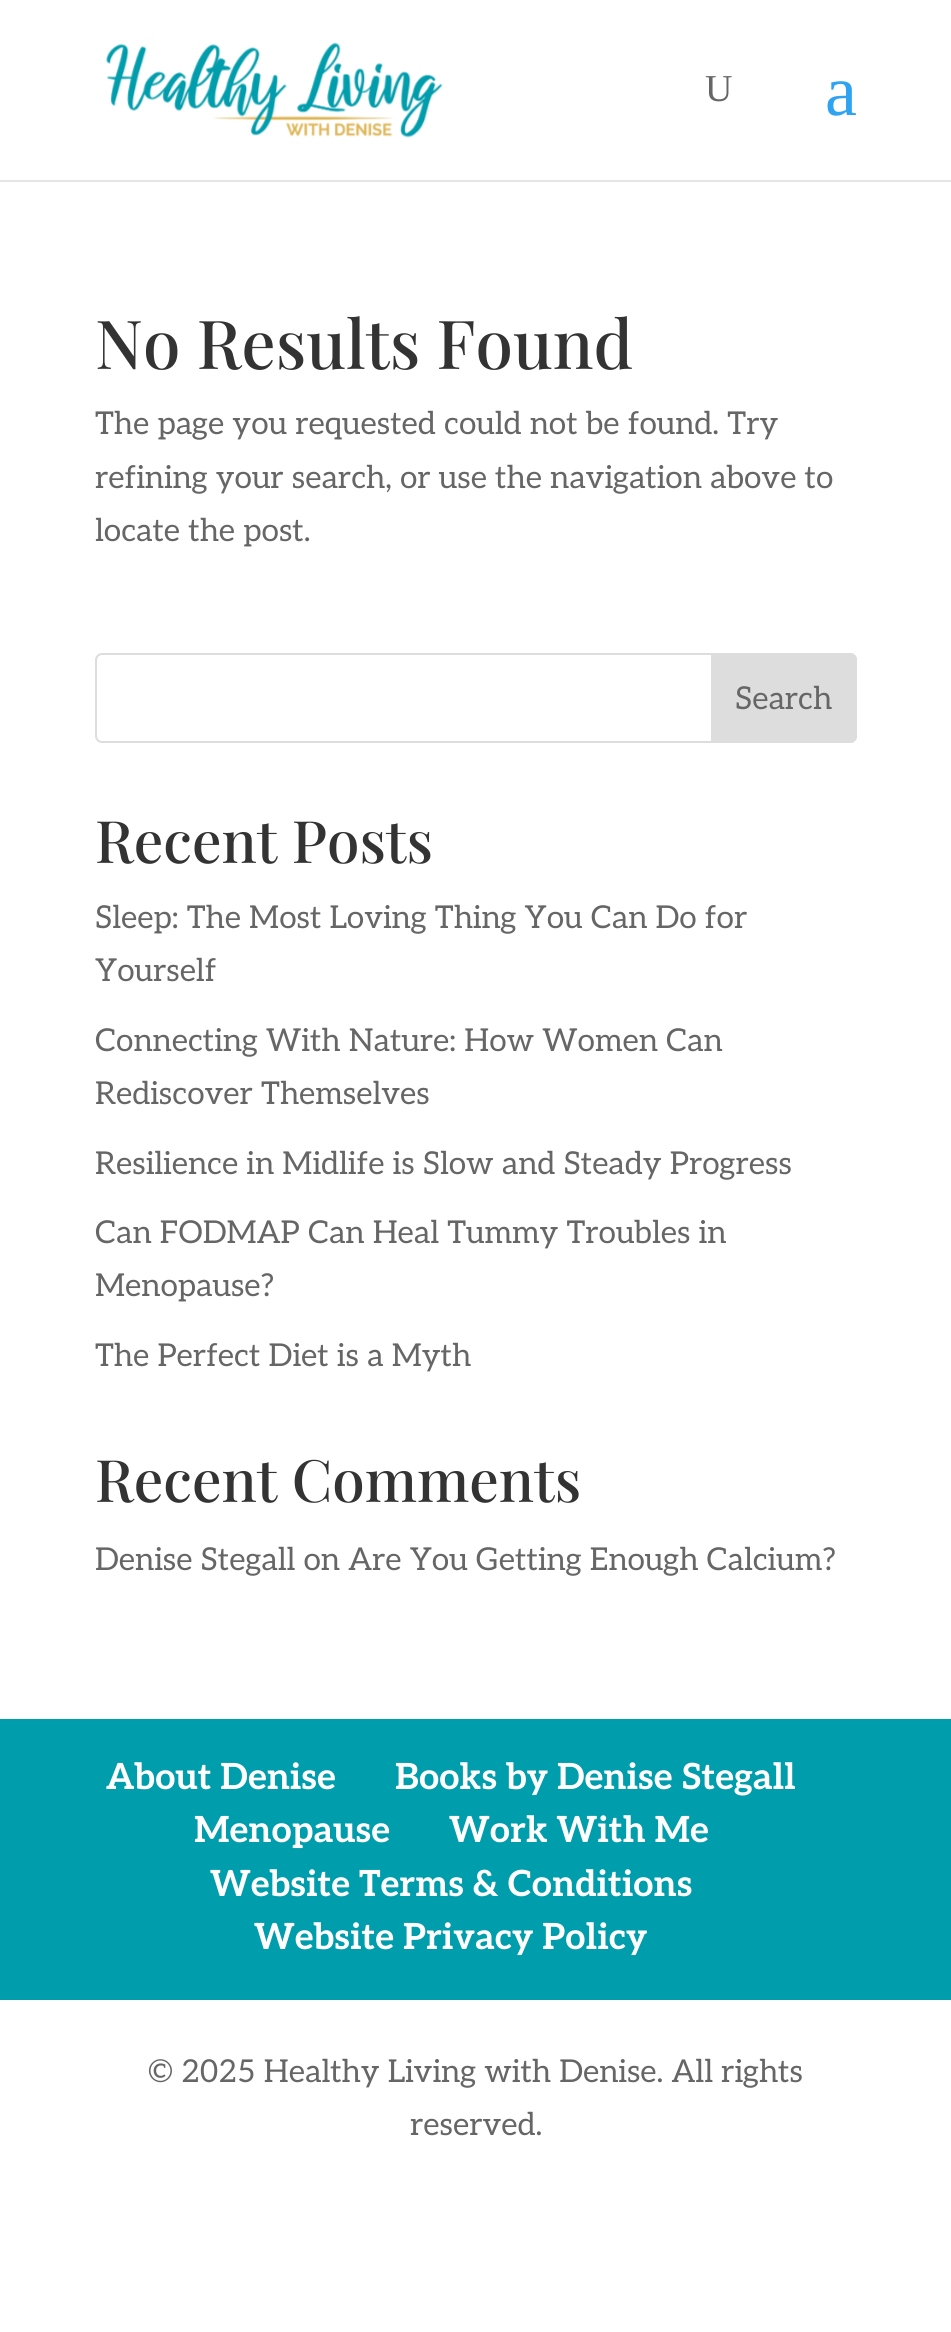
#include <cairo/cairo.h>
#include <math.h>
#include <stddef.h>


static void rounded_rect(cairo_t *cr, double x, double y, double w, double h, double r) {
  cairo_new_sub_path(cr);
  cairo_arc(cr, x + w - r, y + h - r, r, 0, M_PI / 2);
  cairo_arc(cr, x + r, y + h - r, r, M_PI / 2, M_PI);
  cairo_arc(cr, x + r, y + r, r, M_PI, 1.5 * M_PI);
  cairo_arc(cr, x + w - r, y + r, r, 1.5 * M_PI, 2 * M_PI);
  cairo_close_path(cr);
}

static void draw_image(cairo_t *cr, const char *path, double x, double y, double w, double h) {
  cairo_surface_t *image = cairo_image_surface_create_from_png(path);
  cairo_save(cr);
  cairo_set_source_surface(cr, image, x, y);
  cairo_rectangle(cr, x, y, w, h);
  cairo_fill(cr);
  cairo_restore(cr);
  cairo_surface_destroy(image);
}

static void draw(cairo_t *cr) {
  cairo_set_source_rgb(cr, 1, 1, 1);
  cairo_paint(cr);
  cairo_set_source_rgb(cr, 230 / 255.0, 230 / 255.0, 230 / 255.0);
  cairo_new_path(cr);
  cairo_move_to(cr, 0, 180);
  cairo_line_to(cr, 0, 182);
  cairo_line_to(cr, 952, 182);
  cairo_line_to(cr, 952, 2);
  cairo_line_to(cr, 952, 180);
  cairo_close_path(cr);
  cairo_fill(cr);
  draw_image(cr, "images/1.png", 105, 42, 338, 96);
  rounded_rect(cr, 96, 654, 760, 88, 6);
  cairo_set_source_rgb(cr, 221 / 255.0, 221 / 255.0, 221 / 255.0);
  cairo_stroke(cr);
  cairo_new_path(cr);
  cairo_move_to(cr, 712, 654);
  cairo_line_to(cr, 850, 654);
  cairo_curve_to(cr, 853.5, 654, 856, 656.5, 856, 660);
  cairo_line_to(cr, 856, 736);
  cairo_curve_to(cr, 856, 739.5, 853.5, 742, 850, 742);
  cairo_line_to(cr, 712, 742);
  cairo_close_path(cr);
  cairo_fill_preserve(cr);
  cairo_stroke(cr);
  cairo_set_source_rgb(cr, 0, 157 / 255.0, 172 / 255.0);
  cairo_rectangle(cr, 0, 1719, 951, 281);
  cairo_fill(cr);
  cairo_select_font_face(cr, "Liberation Serif", CAIRO_FONT_SLANT_NORMAL, CAIRO_FONT_WEIGHT_NORMAL);
  cairo_set_font_size(cr, 38);
  cairo_set_source_rgb(cr, 102 / 255.0, 102 / 255.0, 102 / 255.0);
  cairo_move_to(cr, 705, 101);
  cairo_show_text(cr, "U");
  cairo_set_font_size(cr, 72);
  cairo_set_source_rgb(cr, 46 / 255.0, 163 / 255.0, 242 / 255.0);
  cairo_move_to(cr, 825, 115);
  cairo_show_text(cr, "a");
  cairo_select_font_face(cr, "Playfair Display Medium", CAIRO_FONT_SLANT_NORMAL, CAIRO_FONT_WEIGHT_NORMAL);
  cairo_set_font_size(cr, 67.5);
  cairo_set_source_rgb(cr, 51 / 255.0, 51 / 255.0, 51 / 255.0);
  cairo_move_to(cr, 95, 369);
  cairo_show_text(cr, "No Results Found");
  cairo_select_font_face(cr, "Aleo", CAIRO_FONT_SLANT_NORMAL, CAIRO_FONT_WEIGHT_NORMAL);
  cairo_set_font_size(cr, 31.5);
  cairo_set_source_rgb(cr, 102 / 255.0, 102 / 255.0, 102 / 255.0);
  cairo_move_to(cr, 95, 434);
  cairo_show_text(cr, "The page you requested could not be found. Try");
  cairo_move_to(cr, 95, 488);
  cairo_show_text(cr, "refining your search, or use the navigation above to");
  cairo_move_to(cr, 95, 541);
  cairo_show_text(cr, "locate the post.");
  cairo_move_to(cr, 735, 709);
  cairo_show_text(cr, "Search");
  cairo_select_font_face(cr, "Playfair Display Medium", CAIRO_FONT_SLANT_NORMAL, CAIRO_FONT_WEIGHT_NORMAL);
  cairo_set_font_size(cr, 58.5);
  cairo_set_source_rgb(cr, 51 / 255.0, 51 / 255.0, 51 / 255.0);
  cairo_move_to(cr, 95, 863);
  cairo_show_text(cr, "Recent Posts");
  cairo_select_font_face(cr, "Aleo", CAIRO_FONT_SLANT_NORMAL, CAIRO_FONT_WEIGHT_NORMAL);
  cairo_set_font_size(cr, 31.5);
  cairo_set_source_rgb(cr, 102 / 255.0, 102 / 255.0, 102 / 255.0);
  cairo_move_to(cr, 95, 928);
  cairo_show_text(cr, "Sleep: The Most Loving Thing You Can Do for");
  cairo_move_to(cr, 95, 981);
  cairo_show_text(cr, "Yourself");
  cairo_move_to(cr, 95, 1051);
  cairo_show_text(cr, "Connecting With Nature: How Women Can");
  cairo_move_to(cr, 95, 1104);
  cairo_show_text(cr, "Rediscover Themselves");
  cairo_move_to(cr, 95, 1174);
  cairo_show_text(cr, "Resilience in Midlife is Slow and Steady Progress");
  cairo_move_to(cr, 95, 1243);
  cairo_show_text(cr, "Can FODMAP Can Heal Tummy Troubles in");
  cairo_move_to(cr, 95, 1296);
  cairo_show_text(cr, "Menopause?");
  cairo_move_to(cr, 95, 1366);
  cairo_show_text(cr, "The Perfect Diet is a Myth");
  cairo_select_font_face(cr, "Playfair Display Medium", CAIRO_FONT_SLANT_NORMAL, CAIRO_FONT_WEIGHT_NORMAL);
  cairo_set_font_size(cr, 58.5);
  cairo_set_source_rgb(cr, 51 / 255.0, 51 / 255.0, 51 / 255.0);
  cairo_move_to(cr, 95, 1502);
  cairo_show_text(cr, "Recent Comments");
  cairo_select_font_face(cr, "Aleo", CAIRO_FONT_SLANT_NORMAL, CAIRO_FONT_WEIGHT_NORMAL);
  cairo_set_font_size(cr, 31.5);
  cairo_set_source_rgb(cr, 102 / 255.0, 102 / 255.0, 102 / 255.0);
  cairo_move_to(cr, 95, 1570);
  cairo_show_text(cr, "Denise Stegall on Are You Getting Enough Calcium?");
  cairo_select_font_face(cr, "Aleo", CAIRO_FONT_SLANT_NORMAL, CAIRO_FONT_WEIGHT_BOLD);
  cairo_set_font_size(cr, 36);
  cairo_set_source_rgb(cr, 1, 1, 1);
  cairo_move_to(cr, 106, 1789);
  cairo_show_text(cr, "About Denise");
  cairo_move_to(cr, 395, 1789);
  cairo_show_text(cr, "Books by Denise Stegall");
  cairo_move_to(cr, 194, 1842);
  cairo_show_text(cr, "Menopause");
  cairo_move_to(cr, 449, 1842);
  cairo_show_text(cr, "Work With Me");
  cairo_move_to(cr, 210, 1896);
  cairo_show_text(cr, "Website Terms & Conditions");
  cairo_move_to(cr, 254, 1949);
  cairo_show_text(cr, "Website Privacy Policy");
  cairo_select_font_face(cr, "Aleo", CAIRO_FONT_SLANT_NORMAL, CAIRO_FONT_WEIGHT_NORMAL);
  cairo_set_font_size(cr, 31.5);
  cairo_set_source_rgb(cr, 102 / 255.0, 102 / 255.0, 102 / 255.0);
  cairo_move_to(cr, 148, 2082);
  cairo_show_text(cr, "© 2025 Healthy Living with Denise. All rights");
  cairo_move_to(cr, 410, 2135);
  cairo_show_text(cr, "reserved.");
}

int main(void) {
  cairo_surface_t *surface = cairo_image_surface_create(CAIRO_FORMAT_RGB24, 951, 2332);
  cairo_t *cr = cairo_create(surface);
  cairo_font_options_t *options = cairo_font_options_create();
  cairo_font_options_set_hint_metrics(options, CAIRO_HINT_METRICS_OFF);
  cairo_font_options_set_hint_style(options, CAIRO_HINT_STYLE_NONE);
  cairo_set_font_options(cr, options);
  cairo_set_miter_limit(cr, 4);
  draw(cr);
  cairo_surface_write_to_png(surface, "out.png");
  cairo_font_options_destroy(options);
  cairo_destroy(cr);
  cairo_surface_destroy(surface);
  return 0;
}
